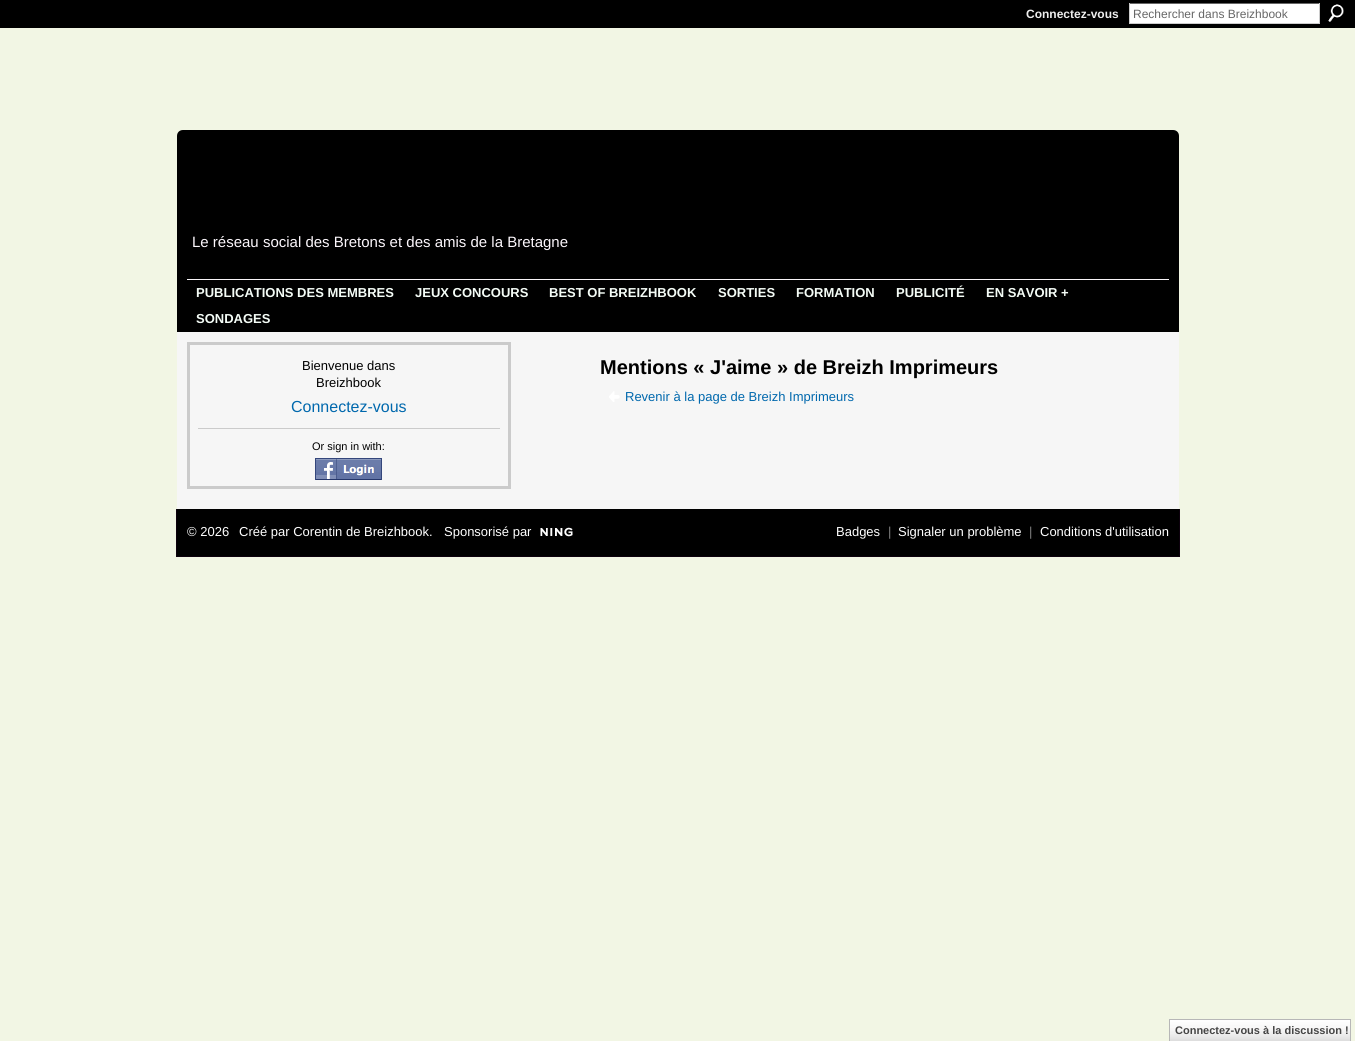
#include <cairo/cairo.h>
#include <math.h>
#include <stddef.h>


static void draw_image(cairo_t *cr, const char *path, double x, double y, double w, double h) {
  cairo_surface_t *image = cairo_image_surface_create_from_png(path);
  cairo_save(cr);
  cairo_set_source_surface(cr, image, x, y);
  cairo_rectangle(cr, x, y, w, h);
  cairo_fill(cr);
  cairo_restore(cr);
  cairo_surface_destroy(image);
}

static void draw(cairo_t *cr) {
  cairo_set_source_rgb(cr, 242 / 255.0, 246 / 255.0, 228 / 255.0);
  cairo_paint(cr);
  cairo_set_source_rgb(cr, 0, 0, 0);
  cairo_rectangle(cr, 0, 0, 1355, 28);
  cairo_fill(cr);
  cairo_set_source_rgb(cr, 1, 1, 1);
  cairo_rectangle(cr, 1130, 4, 189, 19);
  cairo_fill(cr);
  cairo_set_source_rgb(cr, 102 / 255.0, 102 / 255.0, 102 / 255.0);
  cairo_rectangle(cr, 1129, 3, 191, 1);
  cairo_fill(cr);
  cairo_set_source_rgb(cr, 204 / 255.0, 204 / 255.0, 204 / 255.0);
  cairo_rectangle(cr, 1319, 3, 1, 21);
  cairo_fill(cr);
  cairo_rectangle(cr, 1129, 23, 191, 1);
  cairo_fill(cr);
  cairo_rectangle(cr, 1129, 3, 1, 21);
  cairo_fill(cr);
  draw_image(cr, "images/1.png", 1328, 4, 16, 18);
  cairo_set_source_rgb(cr, 0, 0, 0);
  cairo_new_path(cr);
  cairo_move_to(cr, 183, 130);
  cairo_line_to(cr, 1173, 130);
  cairo_curve_to(cr, 1176.5, 130, 1179, 132.5, 1179, 136);
  cairo_line_to(cr, 1179, 332);
  cairo_line_to(cr, 177, 332);
  cairo_line_to(cr, 177, 136);
  cairo_curve_to(cr, 177, 132.5, 179.5, 130, 183, 130);
  cairo_close_path(cr);
  cairo_fill(cr);
  cairo_set_source_rgb(cr, 247 / 255.0, 244 / 255.0, 247 / 255.0);
  cairo_rectangle(cr, 187, 279, 982, 1);
  cairo_fill(cr);
  cairo_set_source_rgb(cr, 246 / 255.0, 246 / 255.0, 246 / 255.0);
  cairo_rectangle(cr, 177, 332, 1002, 177);
  cairo_fill(cr);
  cairo_rectangle(cr, 188.5, 343.5, 321, 144);
  cairo_set_source_rgb(cr, 203 / 255.0, 203 / 255.0, 203 / 255.0);
  cairo_set_line_width(cr, 3);
  cairo_stroke(cr);
  cairo_rectangle(cr, 198, 428, 302, 1);
  cairo_fill(cr);
  draw_image(cr, "images/2.png", 315, 458, 67, 22);
  draw_image(cr, "images/3.png", 609, 391, 11, 11);
  cairo_set_source_rgb(cr, 0, 0, 0);
  cairo_rectangle(cr, 177, 509, 1002, 47);
  cairo_fill(cr);
  cairo_set_source_rgb(cr, 13 / 255.0, 1 / 255.0, 13 / 255.0);
  cairo_rectangle(cr, 1179, 509, 1, 48);
  cairo_fill(cr);
  cairo_rectangle(cr, 176, 556, 1004, 1);
  cairo_fill(cr);
  cairo_rectangle(cr, 176, 509, 1, 48);
  cairo_fill(cr);
  draw_image(cr, "images/4.png", 540, 527, 33, 10);
  draw_image(cr, "images/5.png", 1170, 1020, 180, 21);
  cairo_rectangle(cr, 1169.5, 1019.5, 181, 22);
  cairo_set_source_rgb(cr, 183 / 255.0, 183 / 255.0, 183 / 255.0);
  cairo_set_line_width(cr, 1);
  cairo_stroke(cr);
  cairo_select_font_face(cr, "Liberation Sans", CAIRO_FONT_SLANT_NORMAL, CAIRO_FONT_WEIGHT_BOLD);
  cairo_set_font_size(cr, 12);
  cairo_set_source_rgb(cr, 238 / 255.0, 238 / 255.0, 238 / 255.0);
  cairo_move_to(cr, 1026, 18);
  cairo_show_text(cr, "Connectez-vous");
  cairo_select_font_face(cr, "Liberation Sans", CAIRO_FONT_SLANT_NORMAL, CAIRO_FONT_WEIGHT_NORMAL);
  cairo_set_source_rgb(cr, 102 / 255.0, 102 / 255.0, 102 / 255.0);
  cairo_move_to(cr, 1133, 18);
  cairo_show_text(cr, "Rechercher dans Breizhbook");
  cairo_set_font_size(cr, 15);
  cairo_set_source_rgb(cr, 252 / 255.0, 247 / 255.0, 252 / 255.0);
  cairo_move_to(cr, 192, 247);
  cairo_show_text(cr, "Le réseau social des Bretons et des amis de la Bretagne");
  cairo_select_font_face(cr, "Liberation Sans", CAIRO_FONT_SLANT_NORMAL, CAIRO_FONT_WEIGHT_BOLD);
  cairo_set_font_size(cr, 13);
  cairo_set_source_rgb(cr, 244 / 255.0, 252 / 255.0, 246 / 255.0);
  cairo_move_to(cr, 196, 297);
  cairo_show_text(cr, "PUBLICATIONS DES MEMBRES");
  cairo_move_to(cr, 415, 297);
  cairo_show_text(cr, "JEUX CONCOURS");
  cairo_move_to(cr, 549, 297);
  cairo_show_text(cr, "BEST OF BREIZHBOOK");
  cairo_move_to(cr, 718, 297);
  cairo_show_text(cr, "SORTIES");
  cairo_move_to(cr, 796, 297);
  cairo_show_text(cr, "FORMATION");
  cairo_move_to(cr, 896, 297);
  cairo_show_text(cr, "PUBLICITÉ");
  cairo_move_to(cr, 986, 297);
  cairo_show_text(cr, "EN SAVOIR +");
  cairo_move_to(cr, 196, 323);
  cairo_show_text(cr, "SONDAGES");
  cairo_select_font_face(cr, "Liberation Sans", CAIRO_FONT_SLANT_NORMAL, CAIRO_FONT_WEIGHT_NORMAL);
  cairo_set_source_rgb(cr, 0, 0, 0);
  cairo_move_to(cr, 302, 370);
  cairo_show_text(cr, "Bienvenue dans");
  cairo_move_to(cr, 316, 387);
  cairo_show_text(cr, "Breizhbook");
  cairo_set_font_size(cr, 16);
  cairo_set_source_rgb(cr, 0, 104 / 255.0, 173 / 255.0);
  cairo_move_to(cr, 291, 412);
  cairo_show_text(cr, "Connectez-vous");
  cairo_set_font_size(cr, 11);
  cairo_set_source_rgb(cr, 0, 0, 0);
  cairo_move_to(cr, 312, 450);
  cairo_show_text(cr, "Or sign in with:");
  cairo_select_font_face(cr, "Liberation Sans", CAIRO_FONT_SLANT_NORMAL, CAIRO_FONT_WEIGHT_BOLD);
  cairo_set_font_size(cr, 20);
  cairo_move_to(cr, 600, 374);
  cairo_show_text(cr, "Mentions « J'aime » de Breizh Imprimeurs");
  cairo_select_font_face(cr, "Liberation Sans", CAIRO_FONT_SLANT_NORMAL, CAIRO_FONT_WEIGHT_NORMAL);
  cairo_set_font_size(cr, 13);
  cairo_set_source_rgb(cr, 0, 104 / 255.0, 173 / 255.0);
  cairo_move_to(cr, 625, 401);
  cairo_show_text(cr, "Revenir à la page de Breizh Imprimeurs");
  cairo_set_source_rgb(cr, 1, 1, 1);
  cairo_move_to(cr, 187, 536);
  cairo_show_text(cr, "© 2026");
  cairo_move_to(cr, 239, 536);
  cairo_show_text(cr, "Créé par Corentin de Breizhbook.");
  cairo_move_to(cr, 444, 536);
  cairo_show_text(cr, "Sponsorisé par");
  cairo_move_to(cr, 836, 536);
  cairo_show_text(cr, "Badges");
  cairo_set_source_rgb(cr, 127 / 255.0, 127 / 255.0, 127 / 255.0);
  cairo_move_to(cr, 888, 536);
  cairo_show_text(cr, "|");
  cairo_set_source_rgb(cr, 1, 1, 1);
  cairo_move_to(cr, 898, 536);
  cairo_show_text(cr, "Signaler un problème");
  cairo_set_source_rgb(cr, 127 / 255.0, 127 / 255.0, 127 / 255.0);
  cairo_move_to(cr, 1029, 536);
  cairo_show_text(cr, "|");
  cairo_set_source_rgb(cr, 1, 1, 1);
  cairo_move_to(cr, 1040, 536);
  cairo_show_text(cr, "Conditions d'utilisation");
  cairo_select_font_face(cr, "Liberation Sans", CAIRO_FONT_SLANT_NORMAL, CAIRO_FONT_WEIGHT_BOLD);
  cairo_set_font_size(cr, 11);
  cairo_set_source_rgb(cr, 69 / 255.0, 69 / 255.0, 69 / 255.0);
  cairo_move_to(cr, 1175, 1034);
  cairo_show_text(cr, "Connectez-vous à la discussion !");
}

int main(void) {
  cairo_surface_t *surface = cairo_image_surface_create(CAIRO_FORMAT_RGB24, 1355, 1041);
  cairo_t *cr = cairo_create(surface);
  cairo_font_options_t *options = cairo_font_options_create();
  cairo_font_options_set_hint_metrics(options, CAIRO_HINT_METRICS_OFF);
  cairo_font_options_set_hint_style(options, CAIRO_HINT_STYLE_NONE);
  cairo_set_font_options(cr, options);
  cairo_set_miter_limit(cr, 4);
  draw(cr);
  cairo_surface_write_to_png(surface, "out.png");
  cairo_font_options_destroy(options);
  cairo_destroy(cr);
  cairo_surface_destroy(surface);
  return 0;
}
